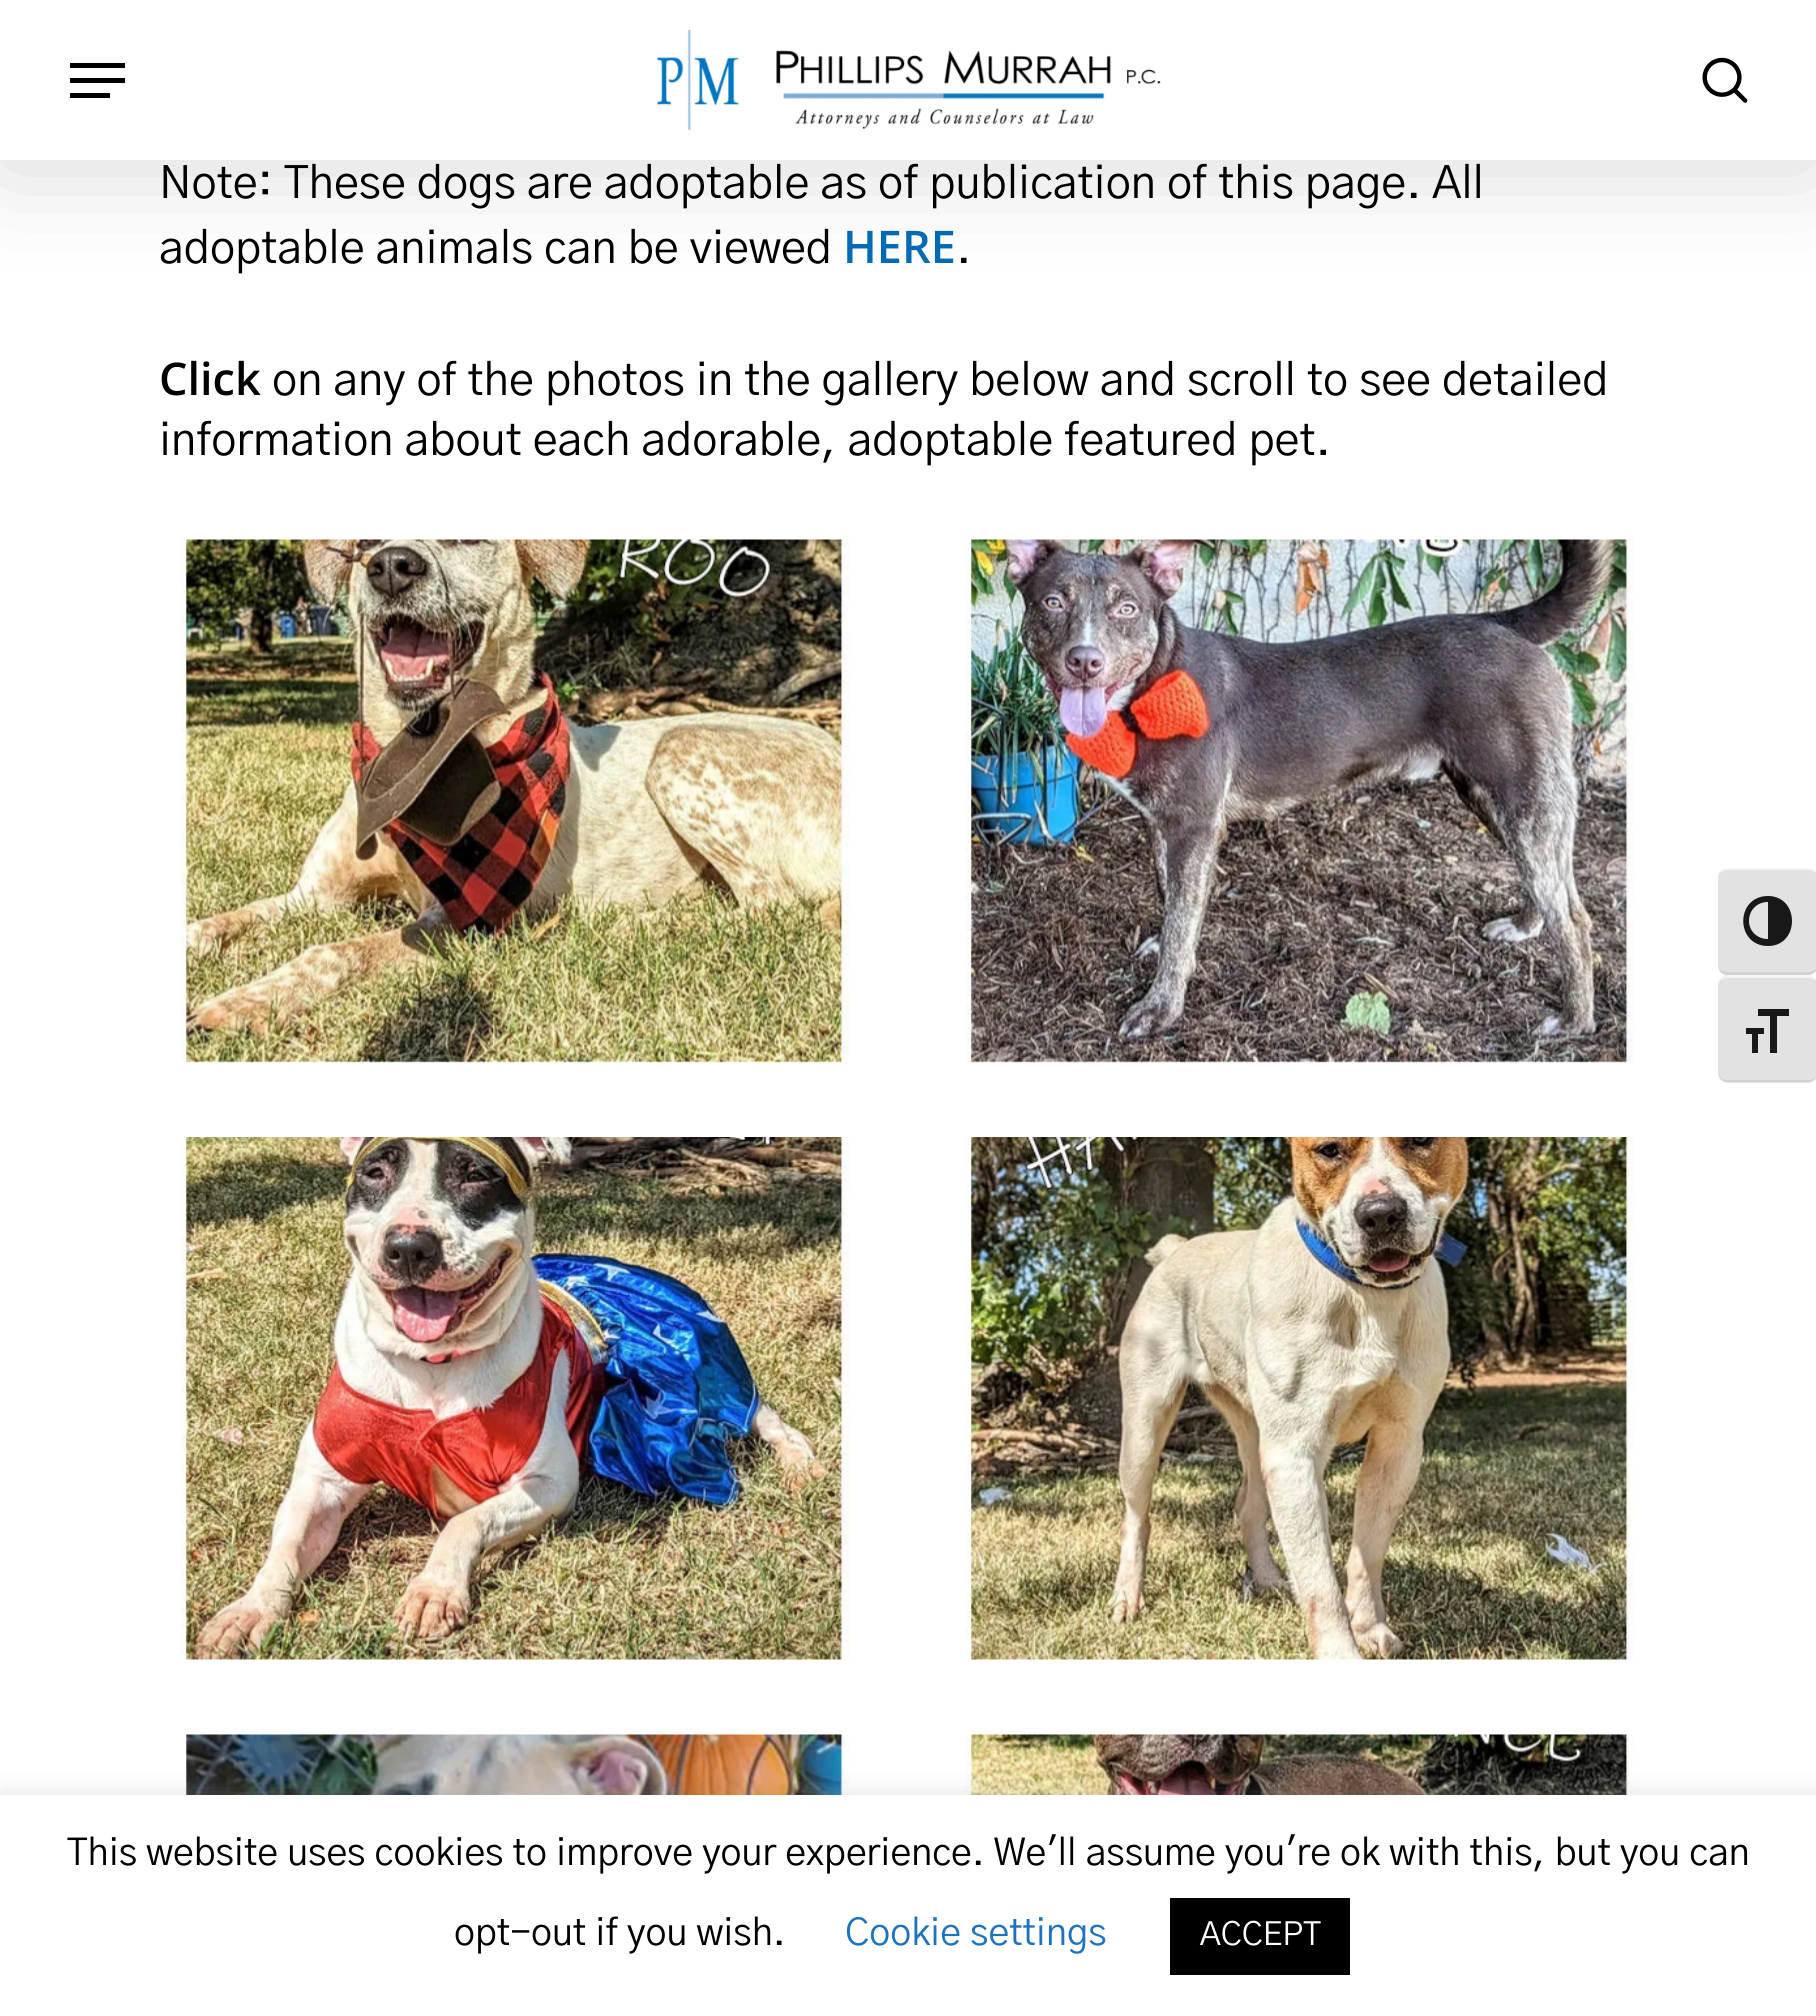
#include <cairo/cairo.h>
#include <math.h>
#include <stddef.h>


static void rounded_rect(cairo_t *cr, double x, double y, double w, double h, double r) {
  cairo_new_sub_path(cr);
  cairo_arc(cr, x + w - r, y + h - r, r, 0, M_PI / 2);
  cairo_arc(cr, x + r, y + h - r, r, M_PI / 2, M_PI);
  cairo_arc(cr, x + r, y + r, r, M_PI, 1.5 * M_PI);
  cairo_arc(cr, x + w - r, y + r, r, 1.5 * M_PI, 2 * M_PI);
  cairo_close_path(cr);
}

static void draw_shadow(cairo_t *cr, double x, double y, double w, double h, double r, double blur, double alpha) {
  cairo_push_group_with_content(cr, CAIRO_CONTENT_ALPHA);
  cairo_set_operator(cr, CAIRO_OPERATOR_SOURCE);
  for (int i = 15; i >= -15 && fmin(w, h) + blur * i / 3 > 0; i -= 2) {
    double e = blur * i / 6;
    cairo_set_source_rgba(cr, 0, 0, 0, alpha * erfc((i - 1) / 8.5) / 2);
    rounded_rect(cr, x - e, y - e, w + 2 * e, h + 2 * e, fmax(0, fmin(r + e + blur * .6, fmin(w, h) / 2 + e)));
    cairo_fill(cr);
  }
  cairo_pattern_t *soft = cairo_pop_group(cr);
  cairo_mask(cr, soft);
  cairo_pattern_destroy(soft);
}

static void draw_image(cairo_t *cr, const char *path, double x, double y, double w, double h) {
  cairo_surface_t *image = cairo_image_surface_create_from_png(path);
  cairo_save(cr);
  cairo_set_source_surface(cr, image, x, y);
  cairo_rectangle(cr, x, y, w, h);
  cairo_fill(cr);
  cairo_restore(cr);
  cairo_surface_destroy(image);
}

static void draw(cairo_t *cr) {
  cairo_set_source_rgb(cr, 1, 1, 1);
  cairo_paint(cr);
  cairo_set_source_rgb(cr, 0, 0, 0);
  draw_shadow(cr, 0, 8, 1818, 160, 0, 56, 0.15);
  cairo_set_source_rgb(cr, 1, 1, 1);
  cairo_rectangle(cr, 0, 0, 1816, 160);
  cairo_fill(cr);
  draw_image(cr, "images/1.png", 657, 30, 504, 100);
  cairo_set_source_rgb(cr, 0, 0, 0);
  cairo_rectangle(cr, 70, 63, 55, 5);
  cairo_fill(cr);
  cairo_rectangle(cr, 70, 93, 40, 5);
  cairo_fill(cr);
  cairo_rectangle(cr, 70, 78, 55, 5);
  cairo_fill(cr);
  draw_image(cr, "images/2.png", 1702, 57, 46, 46);
  draw_image(cr, "images/3.png", 180, 539, 670, 524);
  draw_image(cr, "images/4.png", 965, 539, 669, 524);
  draw_image(cr, "images/5.png", 180, 1137, 670, 523);
  draw_image(cr, "images/6.png", 965, 1137, 670, 523);
  draw_image(cr, "images/7.png", 181, 1734, 669, 61);
  draw_image(cr, "images/8.png", 965, 1734, 670, 61);
  cairo_set_source_rgb(cr, 226 / 255.0, 226 / 255.0, 226 / 255.0);
  rounded_rect(cr, 1718, 868, 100, 107, 10);
  cairo_fill(cr);
  cairo_set_source_rgb(cr, 245 / 255.0, 245 / 255.0, 245 / 255.0);
  cairo_new_path(cr);
  cairo_move_to(cr, 1728, 868);
  cairo_line_to(cr, 1808, 868);
  cairo_curve_to(cr, 1812, 868, 1816, 871, 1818, 875);
  cairo_curve_to(cr, 1816, 872, 1812, 870, 1808, 870);
  cairo_line_to(cr, 1728, 870);
  cairo_curve_to(cr, 1722, 870, 1718, 873, 1718, 878);
  cairo_curve_to(cr, 1718, 872, 1722, 868, 1728, 868);
  cairo_close_path(cr);
  cairo_fill(cr);
  cairo_set_source_rgb(cr, 210 / 255.0, 210 / 255.0, 210 / 255.0);
  cairo_new_path(cr);
  cairo_move_to(cr, 1728, 975);
  cairo_line_to(cr, 1808, 975);
  cairo_curve_to(cr, 1812, 975, 1816, 972, 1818, 968);
  cairo_line_to(cr, 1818, 967);
  cairo_curve_to(cr, 1816, 970, 1812, 972, 1808, 972);
  cairo_line_to(cr, 1728, 972);
  cairo_curve_to(cr, 1722, 972, 1718, 969, 1718, 965);
  cairo_curve_to(cr, 1718, 971, 1722, 975, 1728, 975);
  cairo_close_path(cr);
  cairo_fill(cr);
  cairo_set_source_rgb(cr, 24 / 255.0, 24 / 255.0, 24 / 255.0);
  cairo_new_path(cr);
  cairo_move_to(cr, 1768, 896);
  cairo_curve_to(cr, 1735, 896, 1735, 946, 1768, 946);
  cairo_curve_to(cr, 1800, 946, 1800, 896, 1768, 896);
  cairo_close_path(cr);
  cairo_move_to(cr, 1749, 921);
  cairo_curve_to(cr, 1749, 910, 1757, 902, 1768, 902);
  cairo_line_to(cr, 1768, 939);
  cairo_curve_to(cr, 1757, 939, 1749, 931, 1749, 921);
  cairo_close_path(cr);
  cairo_fill(cr);
  cairo_set_source_rgb(cr, 226 / 255.0, 226 / 255.0, 226 / 255.0);
  rounded_rect(cr, 1718, 975, 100, 108, 10);
  cairo_fill(cr);
  cairo_set_source_rgb(cr, 245 / 255.0, 245 / 255.0, 245 / 255.0);
  cairo_new_path(cr);
  cairo_move_to(cr, 1728, 975);
  cairo_line_to(cr, 1808, 975);
  cairo_curve_to(cr, 1812, 975, 1816, 978, 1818, 982);
  cairo_line_to(cr, 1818, 983);
  cairo_curve_to(cr, 1816, 980, 1812, 978, 1808, 978);
  cairo_line_to(cr, 1728, 978);
  cairo_curve_to(cr, 1722, 978, 1718, 981, 1718, 985);
  cairo_curve_to(cr, 1718, 979, 1722, 975, 1728, 975);
  cairo_close_path(cr);
  cairo_fill(cr);
  cairo_set_source_rgb(cr, 210 / 255.0, 210 / 255.0, 210 / 255.0);
  cairo_new_path(cr);
  cairo_move_to(cr, 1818, 1075);
  cairo_curve_to(cr, 1816, 1079, 1812, 1082, 1808, 1082);
  cairo_line_to(cr, 1728, 1082);
  cairo_curve_to(cr, 1722, 1082, 1718, 1078, 1718, 1072);
  cairo_curve_to(cr, 1718, 1077, 1722, 1080, 1728, 1080);
  cairo_line_to(cr, 1808, 1080);
  cairo_curve_to(cr, 1812, 1080, 1816, 1078, 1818, 1075);
  cairo_close_path(cr);
  cairo_fill(cr);
  cairo_set_source_rgb(cr, 24 / 255.0, 24 / 255.0, 24 / 255.0);
  cairo_new_path(cr);
  cairo_move_to(cr, 1746, 1028);
  cairo_line_to(cr, 1764, 1028);
  cairo_line_to(cr, 1764, 1034);
  cairo_line_to(cr, 1758, 1034);
  cairo_line_to(cr, 1758, 1053);
  cairo_line_to(cr, 1752, 1053);
  cairo_line_to(cr, 1752, 1034);
  cairo_line_to(cr, 1746, 1034);
  cairo_close_path(cr);
  cairo_move_to(cr, 1789, 1016);
  cairo_line_to(cr, 1777, 1016);
  cairo_line_to(cr, 1777, 1053);
  cairo_line_to(cr, 1770, 1053);
  cairo_line_to(cr, 1770, 1016);
  cairo_line_to(cr, 1758, 1016);
  cairo_line_to(cr, 1758, 1009);
  cairo_line_to(cr, 1789, 1009);
  cairo_close_path(cr);
  cairo_fill(cr);
  cairo_set_source_rgb(cr, 172 / 255.0, 171 / 255.0, 171 / 255.0);
  draw_shadow(cr, 0, 1793, 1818, 222, 0, 12.5, 0.3);
  cairo_set_source_rgb(cr, 1, 1, 1);
  cairo_rectangle(cr, 0, 1795, 1816, 221);
  cairo_fill(cr);
  cairo_set_source_rgb(cr, 0, 0, 0);
  cairo_rectangle(cr, 1170, 1898, 180, 77);
  cairo_fill(cr);
  cairo_select_font_face(cr, "Gothic A1", CAIRO_FONT_SLANT_NORMAL, CAIRO_FONT_WEIGHT_NORMAL);
  cairo_set_font_size(cr, 45);
  cairo_move_to(cr, 159, 198);
  cairo_show_text(cr, "Note: These dogs are adoptable as of publication of this page. All");
  cairo_move_to(cr, 159, 263);
  cairo_show_text(cr, "adoptable animals can be viewed");
  cairo_select_font_face(cr, "Open Sans SemiBold", CAIRO_FONT_SLANT_NORMAL, CAIRO_FONT_WEIGHT_NORMAL);
  cairo_set_source_rgb(cr, 1 / 255.0, 106 / 255.0, 180 / 255.0);
  cairo_move_to(cr, 843, 263);
  cairo_show_text(cr, "HERE");
  cairo_select_font_face(cr, "Gothic A1", CAIRO_FONT_SLANT_NORMAL, CAIRO_FONT_WEIGHT_NORMAL);
  cairo_set_source_rgb(cr, 0, 0, 0);
  cairo_move_to(cr, 956, 263);
  cairo_show_text(cr, ".");
  cairo_select_font_face(cr, "Open Sans SemiBold", CAIRO_FONT_SLANT_NORMAL, CAIRO_FONT_WEIGHT_NORMAL);
  cairo_move_to(cr, 159, 395);
  cairo_show_text(cr, "Click");
  cairo_select_font_face(cr, "Gothic A1", CAIRO_FONT_SLANT_NORMAL, CAIRO_FONT_WEIGHT_NORMAL);
  cairo_move_to(cr, 272, 395);
  cairo_show_text(cr, "on any of the photos in the gallery below and scroll to see detailed");
  cairo_move_to(cr, 159, 455);
  cairo_show_text(cr, "information about each adorable, adoptable featured pet.");
  cairo_set_font_size(cr, 37.5);
  cairo_move_to(cr, 67, 1865);
  cairo_show_text(cr, "This website uses cookies to improve your experience. We'll assume you're ok with this, but you can");
  cairo_move_to(cr, 454, 1945);
  cairo_show_text(cr, "opt-out if you wish.");
  cairo_set_source_rgb(cr, 30 / 255.0, 115 / 255.0, 190 / 255.0);
  cairo_move_to(cr, 845, 1945);
  cairo_show_text(cr, "Cookie settings");
  cairo_set_font_size(cr, 32.5);
  cairo_set_source_rgb(cr, 1, 1, 1);
  cairo_move_to(cr, 1200, 1945);
  cairo_show_text(cr, "ACCEPT");
}

int main(void) {
  cairo_surface_t *surface = cairo_image_surface_create(CAIRO_FORMAT_RGB24, 1816, 2016);
  cairo_t *cr = cairo_create(surface);
  cairo_font_options_t *options = cairo_font_options_create();
  cairo_font_options_set_hint_metrics(options, CAIRO_HINT_METRICS_OFF);
  cairo_font_options_set_hint_style(options, CAIRO_HINT_STYLE_NONE);
  cairo_set_font_options(cr, options);
  cairo_set_miter_limit(cr, 4);
  draw(cr);
  cairo_surface_write_to_png(surface, "out.png");
  cairo_font_options_destroy(options);
  cairo_destroy(cr);
  cairo_surface_destroy(surface);
  return 0;
}
